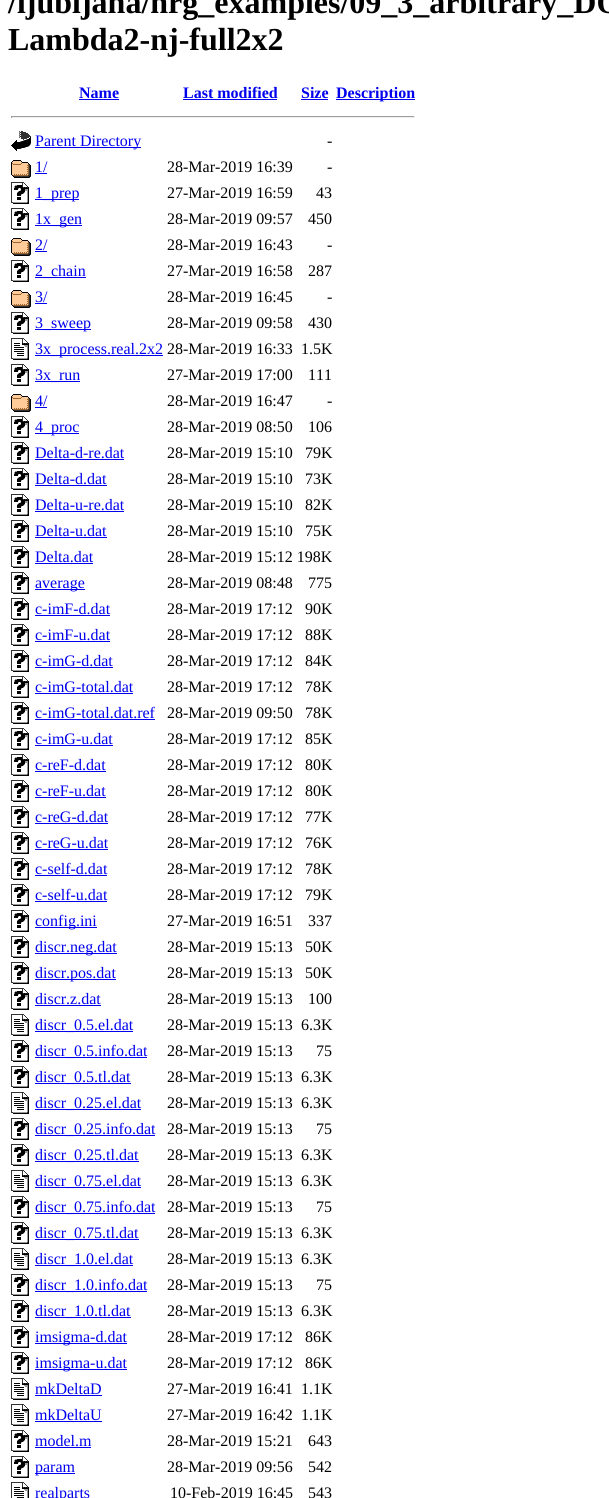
#include <cairo/cairo.h>
#include <math.h>
#include <stddef.h>


static void draw_image(cairo_t *cr, const char *path, double x, double y, double w, double h) {
  cairo_surface_t *image = cairo_image_surface_create_from_png(path);
  cairo_save(cr);
  cairo_set_source_surface(cr, image, x, y);
  cairo_rectangle(cr, x, y, w, h);
  cairo_fill(cr);
  cairo_restore(cr);
  cairo_surface_destroy(image);
}

static void draw(cairo_t *cr) {
  cairo_set_source_rgb(cr, 1, 1, 1);
  cairo_paint(cr);
  cairo_set_source_rgb(cr, 0, 0, 238 / 255.0);
  cairo_rectangle(cr, 79, 99, 40, 1);
  cairo_fill(cr);
  cairo_rectangle(cr, 183, 99, 94, 1);
  cairo_fill(cr);
  cairo_rectangle(cr, 301, 99, 27, 1);
  cairo_fill(cr);
  cairo_rectangle(cr, 336, 99, 79, 1);
  cairo_fill(cr);
  cairo_set_source_rgb(cr, 159 / 255.0, 159 / 255.0, 159 / 255.0);
  cairo_rectangle(cr, 11, 116, 404, 1);
  cairo_fill(cr);
  cairo_set_source_rgb(cr, 238 / 255.0, 238 / 255.0, 238 / 255.0);
  cairo_rectangle(cr, 414, 116, 1, 2);
  cairo_fill(cr);
  cairo_rectangle(cr, 11, 117, 404, 1);
  cairo_fill(cr);
  cairo_set_source_rgb(cr, 159 / 255.0, 159 / 255.0, 159 / 255.0);
  cairo_rectangle(cr, 11, 116, 1, 2);
  cairo_fill(cr);
  draw_image(cr, "images/1.png", 11, 131, 20, 20);
  cairo_set_source_rgb(cr, 0, 0, 238 / 255.0);
  cairo_rectangle(cr, 35, 147, 106, 1);
  cairo_fill(cr);
  draw_image(cr, "images/2.png", 11, 160, 20, 18);
  cairo_rectangle(cr, 35, 173, 12, 1);
  cairo_fill(cr);
  draw_image(cr, "images/3.png", 11, 182, 18, 22);
  cairo_rectangle(cr, 35, 199, 44, 1);
  cairo_fill(cr);
  draw_image(cr, "images/3.png", 11, 208, 18, 22);
  cairo_rectangle(cr, 35, 225, 47, 1);
  cairo_fill(cr);
  draw_image(cr, "images/2.png", 11, 238, 20, 18);
  cairo_rectangle(cr, 35, 251, 12, 1);
  cairo_fill(cr);
  draw_image(cr, "images/3.png", 11, 260, 18, 22);
  cairo_rectangle(cr, 35, 277, 51, 1);
  cairo_fill(cr);
  draw_image(cr, "images/2.png", 11, 290, 20, 18);
  cairo_rectangle(cr, 35, 303, 12, 1);
  cairo_fill(cr);
  draw_image(cr, "images/3.png", 11, 312, 18, 22);
  cairo_rectangle(cr, 35, 329, 56, 1);
  cairo_fill(cr);
  draw_image(cr, "images/4.png", 11, 338, 18, 22);
  cairo_rectangle(cr, 35, 355, 128, 1);
  cairo_fill(cr);
  draw_image(cr, "images/3.png", 11, 364, 18, 22);
  cairo_rectangle(cr, 35, 381, 45, 1);
  cairo_fill(cr);
  draw_image(cr, "images/2.png", 11, 394, 20, 18);
  cairo_rectangle(cr, 35, 407, 12, 1);
  cairo_fill(cr);
  draw_image(cr, "images/3.png", 11, 416, 18, 22);
  cairo_rectangle(cr, 35, 433, 44, 1);
  cairo_fill(cr);
  draw_image(cr, "images/3.png", 11, 442, 18, 22);
  cairo_rectangle(cr, 35, 459, 89, 1);
  cairo_fill(cr);
  draw_image(cr, "images/3.png", 11, 468, 18, 22);
  cairo_rectangle(cr, 35, 485, 72, 1);
  cairo_fill(cr);
  draw_image(cr, "images/3.png", 11, 494, 18, 22);
  cairo_rectangle(cr, 35, 511, 89, 1);
  cairo_fill(cr);
  draw_image(cr, "images/3.png", 11, 520, 18, 22);
  cairo_rectangle(cr, 35, 537, 72, 1);
  cairo_fill(cr);
  draw_image(cr, "images/3.png", 11, 546, 18, 22);
  cairo_rectangle(cr, 35, 563, 58, 1);
  cairo_fill(cr);
  draw_image(cr, "images/3.png", 11, 572, 18, 22);
  cairo_rectangle(cr, 35, 589, 50, 1);
  cairo_fill(cr);
  draw_image(cr, "images/3.png", 11, 598, 18, 22);
  cairo_rectangle(cr, 35, 615, 75, 1);
  cairo_fill(cr);
  draw_image(cr, "images/3.png", 11, 624, 18, 22);
  cairo_rectangle(cr, 35, 641, 75, 1);
  cairo_fill(cr);
  draw_image(cr, "images/3.png", 11, 650, 18, 22);
  cairo_rectangle(cr, 35, 667, 78, 1);
  cairo_fill(cr);
  draw_image(cr, "images/3.png", 11, 676, 18, 22);
  cairo_rectangle(cr, 35, 693, 98, 1);
  cairo_fill(cr);
  draw_image(cr, "images/3.png", 11, 702, 18, 22);
  cairo_rectangle(cr, 35, 719, 120, 1);
  cairo_fill(cr);
  draw_image(cr, "images/3.png", 11, 728, 18, 22);
  cairo_rectangle(cr, 35, 745, 78, 1);
  cairo_fill(cr);
  draw_image(cr, "images/3.png", 11, 754, 18, 22);
  cairo_rectangle(cr, 35, 771, 71, 1);
  cairo_fill(cr);
  draw_image(cr, "images/3.png", 11, 780, 18, 22);
  cairo_rectangle(cr, 35, 797, 71, 1);
  cairo_fill(cr);
  draw_image(cr, "images/3.png", 11, 806, 18, 22);
  cairo_rectangle(cr, 35, 823, 73, 1);
  cairo_fill(cr);
  draw_image(cr, "images/3.png", 11, 832, 18, 22);
  cairo_rectangle(cr, 35, 849, 73, 1);
  cairo_fill(cr);
  draw_image(cr, "images/3.png", 11, 858, 18, 22);
  cairo_rectangle(cr, 35, 875, 72, 1);
  cairo_fill(cr);
  draw_image(cr, "images/3.png", 11, 884, 18, 22);
  cairo_rectangle(cr, 35, 901, 72, 1);
  cairo_fill(cr);
  draw_image(cr, "images/3.png", 11, 910, 18, 22);
  cairo_rectangle(cr, 35, 927, 62, 1);
  cairo_fill(cr);
  draw_image(cr, "images/3.png", 11, 936, 18, 22);
  cairo_rectangle(cr, 35, 953, 82, 1);
  cairo_fill(cr);
  draw_image(cr, "images/3.png", 11, 962, 18, 22);
  cairo_rectangle(cr, 35, 979, 81, 1);
  cairo_fill(cr);
  draw_image(cr, "images/3.png", 11, 988, 18, 22);
  cairo_rectangle(cr, 35, 1005, 66, 1);
  cairo_fill(cr);
  draw_image(cr, "images/4.png", 11, 1014, 18, 22);
  cairo_rectangle(cr, 35, 1031, 98, 1);
  cairo_fill(cr);
  draw_image(cr, "images/3.png", 11, 1040, 18, 22);
  cairo_rectangle(cr, 35, 1057, 112, 1);
  cairo_fill(cr);
  draw_image(cr, "images/3.png", 11, 1066, 18, 22);
  cairo_rectangle(cr, 35, 1083, 96, 1);
  cairo_fill(cr);
  draw_image(cr, "images/4.png", 11, 1092, 18, 22);
  cairo_rectangle(cr, 35, 1109, 106, 1);
  cairo_fill(cr);
  draw_image(cr, "images/3.png", 11, 1118, 18, 22);
  cairo_rectangle(cr, 35, 1135, 120, 1);
  cairo_fill(cr);
  draw_image(cr, "images/3.png", 11, 1144, 18, 22);
  cairo_rectangle(cr, 35, 1161, 104, 1);
  cairo_fill(cr);
  draw_image(cr, "images/4.png", 11, 1170, 18, 22);
  cairo_rectangle(cr, 35, 1187, 106, 1);
  cairo_fill(cr);
  draw_image(cr, "images/3.png", 11, 1196, 18, 22);
  cairo_rectangle(cr, 35, 1213, 120, 1);
  cairo_fill(cr);
  draw_image(cr, "images/3.png", 11, 1222, 18, 22);
  cairo_rectangle(cr, 35, 1239, 104, 1);
  cairo_fill(cr);
  draw_image(cr, "images/4.png", 11, 1248, 18, 22);
  cairo_rectangle(cr, 35, 1265, 98, 1);
  cairo_fill(cr);
  draw_image(cr, "images/3.png", 11, 1274, 18, 22);
  cairo_rectangle(cr, 35, 1291, 112, 1);
  cairo_fill(cr);
  draw_image(cr, "images/3.png", 11, 1300, 18, 22);
  cairo_rectangle(cr, 35, 1317, 96, 1);
  cairo_fill(cr);
  draw_image(cr, "images/3.png", 11, 1326, 18, 22);
  cairo_rectangle(cr, 35, 1343, 92, 1);
  cairo_fill(cr);
  draw_image(cr, "images/3.png", 11, 1352, 18, 22);
  cairo_rectangle(cr, 35, 1369, 92, 1);
  cairo_fill(cr);
  draw_image(cr, "images/4.png", 11, 1378, 18, 22);
  cairo_rectangle(cr, 35, 1395, 67, 1);
  cairo_fill(cr);
  draw_image(cr, "images/4.png", 11, 1404, 18, 22);
  cairo_rectangle(cr, 35, 1421, 67, 1);
  cairo_fill(cr);
  draw_image(cr, "images/3.png", 11, 1430, 18, 22);
  cairo_rectangle(cr, 35, 1447, 56, 1);
  cairo_fill(cr);
  draw_image(cr, "images/3.png", 11, 1456, 18, 22);
  cairo_rectangle(cr, 35, 1473, 40, 1);
  cairo_fill(cr);
  draw_image(cr, "images/5.png", 11, 1482, 18, 16);
  cairo_select_font_face(cr, "Liberation Serif", CAIRO_FONT_SLANT_NORMAL, CAIRO_FONT_WEIGHT_BOLD);
  cairo_set_font_size(cr, 32);
  cairo_set_source_rgb(cr, 0, 0, 0);
  cairo_move_to(cr, 8, 13);
  cairo_show_text(cr, "/ljubljana/nrg_examples/09_3_arbitrary_DO");
  cairo_move_to(cr, 8, 50);
  cairo_show_text(cr, "Lambda2-nj-full2x2");
  cairo_set_font_size(cr, 16);
  cairo_set_source_rgb(cr, 0, 0, 238 / 255.0);
  cairo_move_to(cr, 79, 98);
  cairo_show_text(cr, "Name");
  cairo_move_to(cr, 183, 98);
  cairo_show_text(cr, "Last modified");
  cairo_move_to(cr, 301, 98);
  cairo_show_text(cr, "Size");
  cairo_move_to(cr, 336, 98);
  cairo_show_text(cr, "Description");
  cairo_select_font_face(cr, "Liberation Serif", CAIRO_FONT_SLANT_NORMAL, CAIRO_FONT_WEIGHT_NORMAL);
  cairo_move_to(cr, 35, 146);
  cairo_show_text(cr, "Parent Directory");
  cairo_set_source_rgb(cr, 0, 0, 0);
  cairo_move_to(cr, 327, 146);
  cairo_show_text(cr, "-");
  cairo_set_source_rgb(cr, 0, 0, 238 / 255.0);
  cairo_move_to(cr, 35, 172);
  cairo_show_text(cr, "1/");
  cairo_set_source_rgb(cr, 0, 0, 0);
  cairo_move_to(cr, 167, 172);
  cairo_show_text(cr, "28-Mar-2019 16:39");
  cairo_move_to(cr, 327, 172);
  cairo_show_text(cr, "-");
  cairo_set_source_rgb(cr, 0, 0, 238 / 255.0);
  cairo_move_to(cr, 35, 198);
  cairo_show_text(cr, "1_prep");
  cairo_set_source_rgb(cr, 0, 0, 0);
  cairo_move_to(cr, 167, 198);
  cairo_show_text(cr, "27-Mar-2019 16:59");
  cairo_move_to(cr, 316, 198);
  cairo_show_text(cr, "43");
  cairo_set_source_rgb(cr, 0, 0, 238 / 255.0);
  cairo_move_to(cr, 35, 224);
  cairo_show_text(cr, "1x_gen");
  cairo_set_source_rgb(cr, 0, 0, 0);
  cairo_move_to(cr, 167, 224);
  cairo_show_text(cr, "28-Mar-2019 09:57");
  cairo_move_to(cr, 308, 224);
  cairo_show_text(cr, "450");
  cairo_set_source_rgb(cr, 0, 0, 238 / 255.0);
  cairo_move_to(cr, 35, 250);
  cairo_show_text(cr, "2/");
  cairo_set_source_rgb(cr, 0, 0, 0);
  cairo_move_to(cr, 167, 250);
  cairo_show_text(cr, "28-Mar-2019 16:43");
  cairo_move_to(cr, 327, 250);
  cairo_show_text(cr, "-");
  cairo_set_source_rgb(cr, 0, 0, 238 / 255.0);
  cairo_move_to(cr, 35, 276);
  cairo_show_text(cr, "2_chain");
  cairo_set_source_rgb(cr, 0, 0, 0);
  cairo_move_to(cr, 167, 276);
  cairo_show_text(cr, "27-Mar-2019 16:58");
  cairo_move_to(cr, 308, 276);
  cairo_show_text(cr, "287");
  cairo_set_source_rgb(cr, 0, 0, 238 / 255.0);
  cairo_move_to(cr, 35, 302);
  cairo_show_text(cr, "3/");
  cairo_set_source_rgb(cr, 0, 0, 0);
  cairo_move_to(cr, 167, 302);
  cairo_show_text(cr, "28-Mar-2019 16:45");
  cairo_move_to(cr, 327, 302);
  cairo_show_text(cr, "-");
  cairo_set_source_rgb(cr, 0, 0, 238 / 255.0);
  cairo_move_to(cr, 35, 328);
  cairo_show_text(cr, "3_sweep");
  cairo_set_source_rgb(cr, 0, 0, 0);
  cairo_move_to(cr, 167, 328);
  cairo_show_text(cr, "28-Mar-2019 09:58");
  cairo_move_to(cr, 308, 328);
  cairo_show_text(cr, "430");
  cairo_set_source_rgb(cr, 0, 0, 238 / 255.0);
  cairo_move_to(cr, 35, 354);
  cairo_show_text(cr, "3x_process.real.2x2");
  cairo_set_source_rgb(cr, 0, 0, 0);
  cairo_move_to(cr, 167, 354);
  cairo_show_text(cr, "28-Mar-2019 16:33");
  cairo_move_to(cr, 301, 354);
  cairo_show_text(cr, "1.5K");
  cairo_set_source_rgb(cr, 0, 0, 238 / 255.0);
  cairo_move_to(cr, 35, 380);
  cairo_show_text(cr, "3x_run");
  cairo_set_source_rgb(cr, 0, 0, 0);
  cairo_move_to(cr, 167, 380);
  cairo_show_text(cr, "27-Mar-2019 17:00");
  cairo_move_to(cr, 308, 380);
  cairo_show_text(cr, "111");
  cairo_set_source_rgb(cr, 0, 0, 238 / 255.0);
  cairo_move_to(cr, 35, 406);
  cairo_show_text(cr, "4/");
  cairo_set_source_rgb(cr, 0, 0, 0);
  cairo_move_to(cr, 167, 406);
  cairo_show_text(cr, "28-Mar-2019 16:47");
  cairo_move_to(cr, 327, 406);
  cairo_show_text(cr, "-");
  cairo_set_source_rgb(cr, 0, 0, 238 / 255.0);
  cairo_move_to(cr, 35, 432);
  cairo_show_text(cr, "4_proc");
  cairo_set_source_rgb(cr, 0, 0, 0);
  cairo_move_to(cr, 167, 432);
  cairo_show_text(cr, "28-Mar-2019 08:50");
  cairo_move_to(cr, 308, 432);
  cairo_show_text(cr, "106");
  cairo_set_source_rgb(cr, 0, 0, 238 / 255.0);
  cairo_move_to(cr, 35, 458);
  cairo_show_text(cr, "Delta-d-re.dat");
  cairo_set_source_rgb(cr, 0, 0, 0);
  cairo_move_to(cr, 167, 458);
  cairo_show_text(cr, "28-Mar-2019 15:10");
  cairo_move_to(cr, 305, 458);
  cairo_show_text(cr, "79K");
  cairo_set_source_rgb(cr, 0, 0, 238 / 255.0);
  cairo_move_to(cr, 35, 484);
  cairo_show_text(cr, "Delta-d.dat");
  cairo_set_source_rgb(cr, 0, 0, 0);
  cairo_move_to(cr, 167, 484);
  cairo_show_text(cr, "28-Mar-2019 15:10");
  cairo_move_to(cr, 305, 484);
  cairo_show_text(cr, "73K");
  cairo_set_source_rgb(cr, 0, 0, 238 / 255.0);
  cairo_move_to(cr, 35, 510);
  cairo_show_text(cr, "Delta-u-re.dat");
  cairo_set_source_rgb(cr, 0, 0, 0);
  cairo_move_to(cr, 167, 510);
  cairo_show_text(cr, "28-Mar-2019 15:10");
  cairo_move_to(cr, 305, 510);
  cairo_show_text(cr, "82K");
  cairo_set_source_rgb(cr, 0, 0, 238 / 255.0);
  cairo_move_to(cr, 35, 536);
  cairo_show_text(cr, "Delta-u.dat");
  cairo_set_source_rgb(cr, 0, 0, 0);
  cairo_move_to(cr, 167, 536);
  cairo_show_text(cr, "28-Mar-2019 15:10");
  cairo_move_to(cr, 305, 536);
  cairo_show_text(cr, "75K");
  cairo_set_source_rgb(cr, 0, 0, 238 / 255.0);
  cairo_move_to(cr, 35, 562);
  cairo_show_text(cr, "Delta.dat");
  cairo_set_source_rgb(cr, 0, 0, 0);
  cairo_move_to(cr, 167, 562);
  cairo_show_text(cr, "28-Mar-2019 15:12 198K");
  cairo_set_source_rgb(cr, 0, 0, 238 / 255.0);
  cairo_move_to(cr, 35, 588);
  cairo_show_text(cr, "average");
  cairo_set_source_rgb(cr, 0, 0, 0);
  cairo_move_to(cr, 167, 588);
  cairo_show_text(cr, "28-Mar-2019 08:48");
  cairo_move_to(cr, 308, 588);
  cairo_show_text(cr, "775");
  cairo_set_source_rgb(cr, 0, 0, 238 / 255.0);
  cairo_move_to(cr, 35, 614);
  cairo_show_text(cr, "c-imF-d.dat");
  cairo_set_source_rgb(cr, 0, 0, 0);
  cairo_move_to(cr, 167, 614);
  cairo_show_text(cr, "28-Mar-2019 17:12");
  cairo_move_to(cr, 305, 614);
  cairo_show_text(cr, "90K");
  cairo_set_source_rgb(cr, 0, 0, 238 / 255.0);
  cairo_move_to(cr, 35, 640);
  cairo_show_text(cr, "c-imF-u.dat");
  cairo_set_source_rgb(cr, 0, 0, 0);
  cairo_move_to(cr, 167, 640);
  cairo_show_text(cr, "28-Mar-2019 17:12");
  cairo_move_to(cr, 305, 640);
  cairo_show_text(cr, "88K");
  cairo_set_source_rgb(cr, 0, 0, 238 / 255.0);
  cairo_move_to(cr, 35, 666);
  cairo_show_text(cr, "c-imG-d.dat");
  cairo_set_source_rgb(cr, 0, 0, 0);
  cairo_move_to(cr, 167, 666);
  cairo_show_text(cr, "28-Mar-2019 17:12");
  cairo_move_to(cr, 305, 666);
  cairo_show_text(cr, "84K");
  cairo_set_source_rgb(cr, 0, 0, 238 / 255.0);
  cairo_move_to(cr, 35, 692);
  cairo_show_text(cr, "c-imG-total.dat");
  cairo_set_source_rgb(cr, 0, 0, 0);
  cairo_move_to(cr, 167, 692);
  cairo_show_text(cr, "28-Mar-2019 17:12");
  cairo_move_to(cr, 305, 692);
  cairo_show_text(cr, "78K");
  cairo_set_source_rgb(cr, 0, 0, 238 / 255.0);
  cairo_move_to(cr, 35, 718);
  cairo_show_text(cr, "c-imG-total.dat.ref");
  cairo_set_source_rgb(cr, 0, 0, 0);
  cairo_move_to(cr, 167, 718);
  cairo_show_text(cr, "28-Mar-2019 09:50");
  cairo_move_to(cr, 305, 718);
  cairo_show_text(cr, "78K");
  cairo_set_source_rgb(cr, 0, 0, 238 / 255.0);
  cairo_move_to(cr, 35, 744);
  cairo_show_text(cr, "c-imG-u.dat");
  cairo_set_source_rgb(cr, 0, 0, 0);
  cairo_move_to(cr, 167, 744);
  cairo_show_text(cr, "28-Mar-2019 17:12");
  cairo_move_to(cr, 305, 744);
  cairo_show_text(cr, "85K");
  cairo_set_source_rgb(cr, 0, 0, 238 / 255.0);
  cairo_move_to(cr, 35, 770);
  cairo_show_text(cr, "c-reF-d.dat");
  cairo_set_source_rgb(cr, 0, 0, 0);
  cairo_move_to(cr, 167, 770);
  cairo_show_text(cr, "28-Mar-2019 17:12");
  cairo_move_to(cr, 305, 770);
  cairo_show_text(cr, "80K");
  cairo_set_source_rgb(cr, 0, 0, 238 / 255.0);
  cairo_move_to(cr, 35, 796);
  cairo_show_text(cr, "c-reF-u.dat");
  cairo_set_source_rgb(cr, 0, 0, 0);
  cairo_move_to(cr, 167, 796);
  cairo_show_text(cr, "28-Mar-2019 17:12");
  cairo_move_to(cr, 305, 796);
  cairo_show_text(cr, "80K");
  cairo_set_source_rgb(cr, 0, 0, 238 / 255.0);
  cairo_move_to(cr, 35, 822);
  cairo_show_text(cr, "c-reG-d.dat");
  cairo_set_source_rgb(cr, 0, 0, 0);
  cairo_move_to(cr, 167, 822);
  cairo_show_text(cr, "28-Mar-2019 17:12");
  cairo_move_to(cr, 305, 822);
  cairo_show_text(cr, "77K");
  cairo_set_source_rgb(cr, 0, 0, 238 / 255.0);
  cairo_move_to(cr, 35, 848);
  cairo_show_text(cr, "c-reG-u.dat");
  cairo_set_source_rgb(cr, 0, 0, 0);
  cairo_move_to(cr, 167, 848);
  cairo_show_text(cr, "28-Mar-2019 17:12");
  cairo_move_to(cr, 305, 848);
  cairo_show_text(cr, "76K");
  cairo_set_source_rgb(cr, 0, 0, 238 / 255.0);
  cairo_move_to(cr, 35, 874);
  cairo_show_text(cr, "c-self-d.dat");
  cairo_set_source_rgb(cr, 0, 0, 0);
  cairo_move_to(cr, 167, 874);
  cairo_show_text(cr, "28-Mar-2019 17:12");
  cairo_move_to(cr, 305, 874);
  cairo_show_text(cr, "78K");
  cairo_set_source_rgb(cr, 0, 0, 238 / 255.0);
  cairo_move_to(cr, 35, 900);
  cairo_show_text(cr, "c-self-u.dat");
  cairo_set_source_rgb(cr, 0, 0, 0);
  cairo_move_to(cr, 167, 900);
  cairo_show_text(cr, "28-Mar-2019 17:12");
  cairo_move_to(cr, 305, 900);
  cairo_show_text(cr, "79K");
  cairo_set_source_rgb(cr, 0, 0, 238 / 255.0);
  cairo_move_to(cr, 35, 926);
  cairo_show_text(cr, "config.ini");
  cairo_set_source_rgb(cr, 0, 0, 0);
  cairo_move_to(cr, 167, 926);
  cairo_show_text(cr, "27-Mar-2019 16:51");
  cairo_move_to(cr, 308, 926);
  cairo_show_text(cr, "337");
  cairo_set_source_rgb(cr, 0, 0, 238 / 255.0);
  cairo_move_to(cr, 35, 952);
  cairo_show_text(cr, "discr.neg.dat");
  cairo_set_source_rgb(cr, 0, 0, 0);
  cairo_move_to(cr, 167, 952);
  cairo_show_text(cr, "28-Mar-2019 15:13");
  cairo_move_to(cr, 305, 952);
  cairo_show_text(cr, "50K");
  cairo_set_source_rgb(cr, 0, 0, 238 / 255.0);
  cairo_move_to(cr, 35, 978);
  cairo_show_text(cr, "discr.pos.dat");
  cairo_set_source_rgb(cr, 0, 0, 0);
  cairo_move_to(cr, 167, 978);
  cairo_show_text(cr, "28-Mar-2019 15:13");
  cairo_move_to(cr, 305, 978);
  cairo_show_text(cr, "50K");
  cairo_set_source_rgb(cr, 0, 0, 238 / 255.0);
  cairo_move_to(cr, 35, 1004);
  cairo_show_text(cr, "discr.z.dat");
  cairo_set_source_rgb(cr, 0, 0, 0);
  cairo_move_to(cr, 167, 1004);
  cairo_show_text(cr, "28-Mar-2019 15:13");
  cairo_move_to(cr, 308, 1004);
  cairo_show_text(cr, "100");
  cairo_set_source_rgb(cr, 0, 0, 238 / 255.0);
  cairo_move_to(cr, 35, 1030);
  cairo_show_text(cr, "discr_0.5.el.dat");
  cairo_set_source_rgb(cr, 0, 0, 0);
  cairo_move_to(cr, 167, 1030);
  cairo_show_text(cr, "28-Mar-2019 15:13");
  cairo_move_to(cr, 301, 1030);
  cairo_show_text(cr, "6.3K");
  cairo_set_source_rgb(cr, 0, 0, 238 / 255.0);
  cairo_move_to(cr, 35, 1056);
  cairo_show_text(cr, "discr_0.5.info.dat");
  cairo_set_source_rgb(cr, 0, 0, 0);
  cairo_move_to(cr, 167, 1056);
  cairo_show_text(cr, "28-Mar-2019 15:13");
  cairo_move_to(cr, 316, 1056);
  cairo_show_text(cr, "75");
  cairo_set_source_rgb(cr, 0, 0, 238 / 255.0);
  cairo_move_to(cr, 35, 1082);
  cairo_show_text(cr, "discr_0.5.tl.dat");
  cairo_set_source_rgb(cr, 0, 0, 0);
  cairo_move_to(cr, 167, 1082);
  cairo_show_text(cr, "28-Mar-2019 15:13");
  cairo_move_to(cr, 301, 1082);
  cairo_show_text(cr, "6.3K");
  cairo_set_source_rgb(cr, 0, 0, 238 / 255.0);
  cairo_move_to(cr, 35, 1108);
  cairo_show_text(cr, "discr_0.25.el.dat");
  cairo_set_source_rgb(cr, 0, 0, 0);
  cairo_move_to(cr, 167, 1108);
  cairo_show_text(cr, "28-Mar-2019 15:13");
  cairo_move_to(cr, 301, 1108);
  cairo_show_text(cr, "6.3K");
  cairo_set_source_rgb(cr, 0, 0, 238 / 255.0);
  cairo_move_to(cr, 35, 1134);
  cairo_show_text(cr, "discr_0.25.info.dat");
  cairo_set_source_rgb(cr, 0, 0, 0);
  cairo_move_to(cr, 167, 1134);
  cairo_show_text(cr, "28-Mar-2019 15:13");
  cairo_move_to(cr, 316, 1134);
  cairo_show_text(cr, "75");
  cairo_set_source_rgb(cr, 0, 0, 238 / 255.0);
  cairo_move_to(cr, 35, 1160);
  cairo_show_text(cr, "discr_0.25.tl.dat");
  cairo_set_source_rgb(cr, 0, 0, 0);
  cairo_move_to(cr, 167, 1160);
  cairo_show_text(cr, "28-Mar-2019 15:13");
  cairo_move_to(cr, 301, 1160);
  cairo_show_text(cr, "6.3K");
  cairo_set_source_rgb(cr, 0, 0, 238 / 255.0);
  cairo_move_to(cr, 35, 1186);
  cairo_show_text(cr, "discr_0.75.el.dat");
  cairo_set_source_rgb(cr, 0, 0, 0);
  cairo_move_to(cr, 167, 1186);
  cairo_show_text(cr, "28-Mar-2019 15:13");
  cairo_move_to(cr, 301, 1186);
  cairo_show_text(cr, "6.3K");
  cairo_set_source_rgb(cr, 0, 0, 238 / 255.0);
  cairo_move_to(cr, 35, 1212);
  cairo_show_text(cr, "discr_0.75.info.dat");
  cairo_set_source_rgb(cr, 0, 0, 0);
  cairo_move_to(cr, 167, 1212);
  cairo_show_text(cr, "28-Mar-2019 15:13");
  cairo_move_to(cr, 316, 1212);
  cairo_show_text(cr, "75");
  cairo_set_source_rgb(cr, 0, 0, 238 / 255.0);
  cairo_move_to(cr, 35, 1238);
  cairo_show_text(cr, "discr_0.75.tl.dat");
  cairo_set_source_rgb(cr, 0, 0, 0);
  cairo_move_to(cr, 167, 1238);
  cairo_show_text(cr, "28-Mar-2019 15:13");
  cairo_move_to(cr, 301, 1238);
  cairo_show_text(cr, "6.3K");
  cairo_set_source_rgb(cr, 0, 0, 238 / 255.0);
  cairo_move_to(cr, 35, 1264);
  cairo_show_text(cr, "discr_1.0.el.dat");
  cairo_set_source_rgb(cr, 0, 0, 0);
  cairo_move_to(cr, 167, 1264);
  cairo_show_text(cr, "28-Mar-2019 15:13");
  cairo_move_to(cr, 301, 1264);
  cairo_show_text(cr, "6.3K");
  cairo_set_source_rgb(cr, 0, 0, 238 / 255.0);
  cairo_move_to(cr, 35, 1290);
  cairo_show_text(cr, "discr_1.0.info.dat");
  cairo_set_source_rgb(cr, 0, 0, 0);
  cairo_move_to(cr, 167, 1290);
  cairo_show_text(cr, "28-Mar-2019 15:13");
  cairo_move_to(cr, 316, 1290);
  cairo_show_text(cr, "75");
  cairo_set_source_rgb(cr, 0, 0, 238 / 255.0);
  cairo_move_to(cr, 35, 1316);
  cairo_show_text(cr, "discr_1.0.tl.dat");
  cairo_set_source_rgb(cr, 0, 0, 0);
  cairo_move_to(cr, 167, 1316);
  cairo_show_text(cr, "28-Mar-2019 15:13");
  cairo_move_to(cr, 301, 1316);
  cairo_show_text(cr, "6.3K");
  cairo_set_source_rgb(cr, 0, 0, 238 / 255.0);
  cairo_move_to(cr, 35, 1342);
  cairo_show_text(cr, "imsigma-d.dat");
  cairo_set_source_rgb(cr, 0, 0, 0);
  cairo_move_to(cr, 167, 1342);
  cairo_show_text(cr, "28-Mar-2019 17:12");
  cairo_move_to(cr, 305, 1342);
  cairo_show_text(cr, "86K");
  cairo_set_source_rgb(cr, 0, 0, 238 / 255.0);
  cairo_move_to(cr, 35, 1368);
  cairo_show_text(cr, "imsigma-u.dat");
  cairo_set_source_rgb(cr, 0, 0, 0);
  cairo_move_to(cr, 167, 1368);
  cairo_show_text(cr, "28-Mar-2019 17:12");
  cairo_move_to(cr, 305, 1368);
  cairo_show_text(cr, "86K");
  cairo_set_source_rgb(cr, 0, 0, 238 / 255.0);
  cairo_move_to(cr, 35, 1394);
  cairo_show_text(cr, "mkDeltaD");
  cairo_set_source_rgb(cr, 0, 0, 0);
  cairo_move_to(cr, 167, 1394);
  cairo_show_text(cr, "27-Mar-2019 16:41");
  cairo_move_to(cr, 301, 1394);
  cairo_show_text(cr, "1.1K");
  cairo_set_source_rgb(cr, 0, 0, 238 / 255.0);
  cairo_move_to(cr, 35, 1420);
  cairo_show_text(cr, "mkDeltaU");
  cairo_set_source_rgb(cr, 0, 0, 0);
  cairo_move_to(cr, 167, 1420);
  cairo_show_text(cr, "27-Mar-2019 16:42");
  cairo_move_to(cr, 301, 1420);
  cairo_show_text(cr, "1.1K");
  cairo_set_source_rgb(cr, 0, 0, 238 / 255.0);
  cairo_move_to(cr, 35, 1446);
  cairo_show_text(cr, "model.m");
  cairo_set_source_rgb(cr, 0, 0, 0);
  cairo_move_to(cr, 167, 1446);
  cairo_show_text(cr, "28-Mar-2019 15:21");
  cairo_move_to(cr, 308, 1446);
  cairo_show_text(cr, "643");
  cairo_set_source_rgb(cr, 0, 0, 238 / 255.0);
  cairo_move_to(cr, 35, 1472);
  cairo_show_text(cr, "param");
  cairo_set_source_rgb(cr, 0, 0, 0);
  cairo_move_to(cr, 167, 1472);
  cairo_show_text(cr, "28-Mar-2019 09:56");
  cairo_move_to(cr, 308, 1472);
  cairo_show_text(cr, "542");
  cairo_set_source_rgb(cr, 0, 0, 238 / 255.0);
  cairo_move_to(cr, 35, 1498);
  cairo_show_text(cr, "realparts");
  cairo_set_source_rgb(cr, 0, 0, 0);
  cairo_move_to(cr, 170, 1498);
  cairo_show_text(cr, "10-Feb-2019 16:45");
  cairo_move_to(cr, 308, 1498);
  cairo_show_text(cr, "543");
}

int main(void) {
  cairo_surface_t *surface = cairo_image_surface_create(CAIRO_FORMAT_RGB24, 609, 1498);
  cairo_t *cr = cairo_create(surface);
  cairo_font_options_t *options = cairo_font_options_create();
  cairo_font_options_set_hint_metrics(options, CAIRO_HINT_METRICS_OFF);
  cairo_font_options_set_hint_style(options, CAIRO_HINT_STYLE_NONE);
  cairo_set_font_options(cr, options);
  cairo_set_miter_limit(cr, 4);
  draw(cr);
  cairo_surface_write_to_png(surface, "out.png");
  cairo_font_options_destroy(options);
  cairo_destroy(cr);
  cairo_surface_destroy(surface);
  return 0;
}
